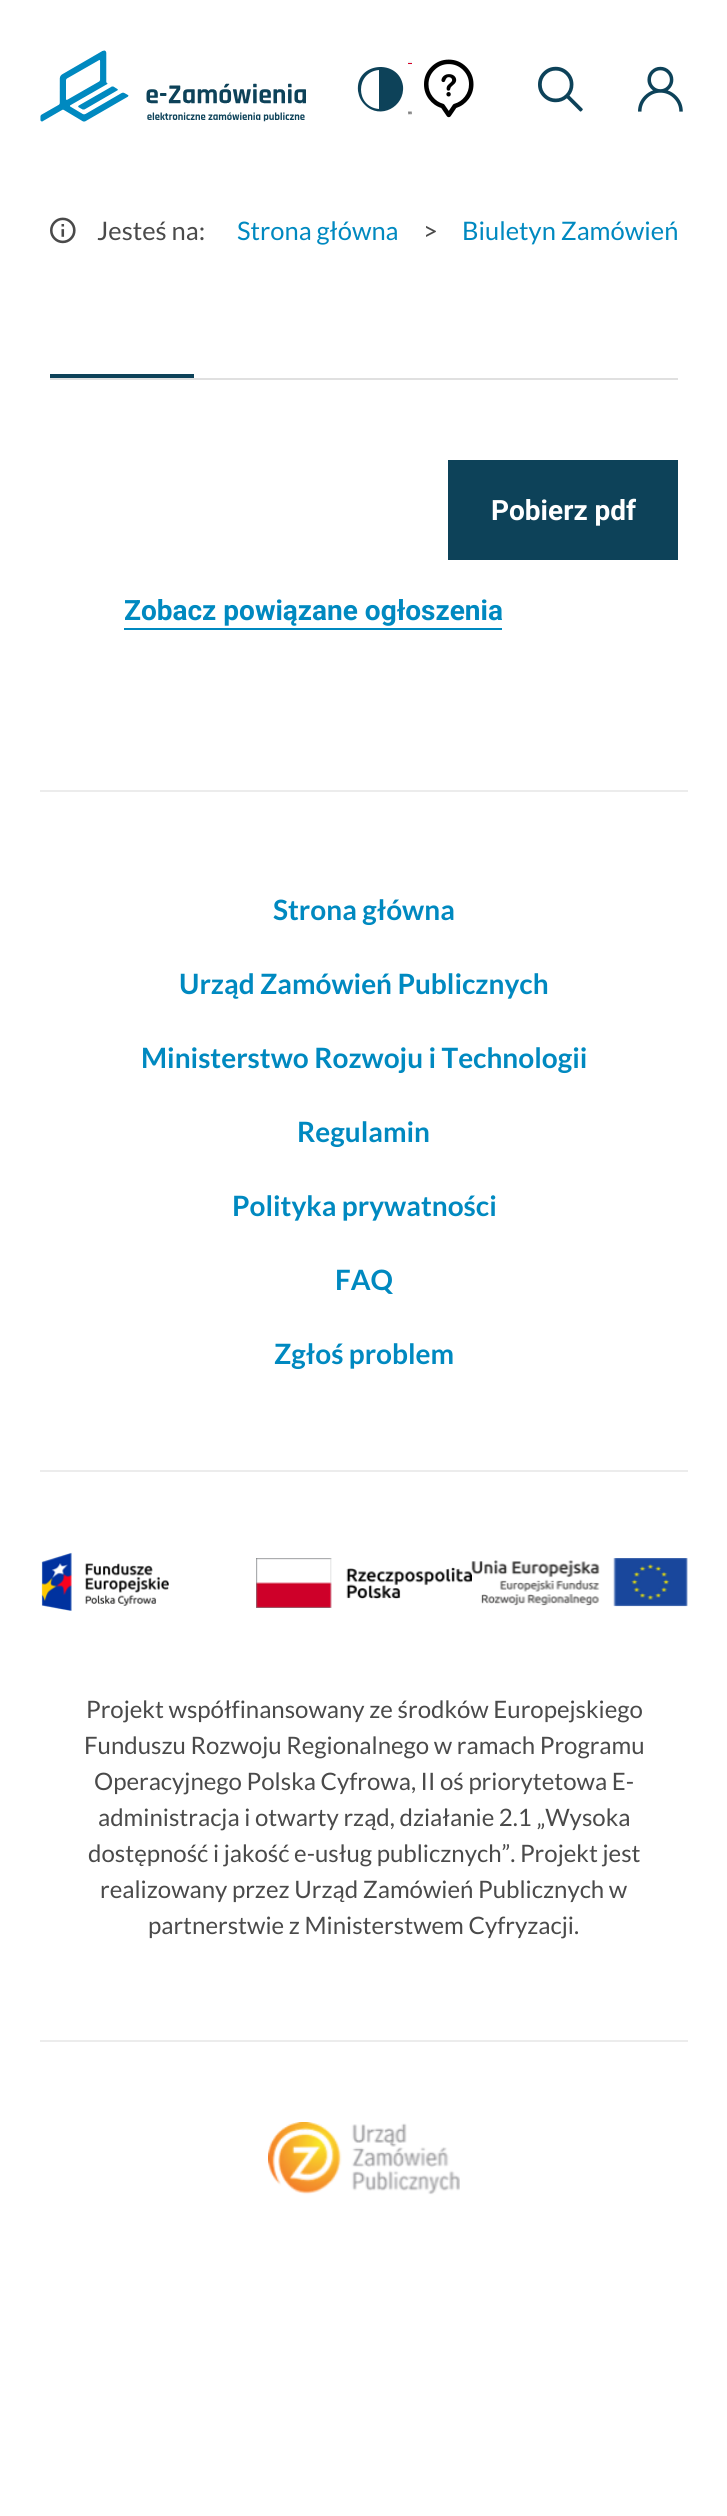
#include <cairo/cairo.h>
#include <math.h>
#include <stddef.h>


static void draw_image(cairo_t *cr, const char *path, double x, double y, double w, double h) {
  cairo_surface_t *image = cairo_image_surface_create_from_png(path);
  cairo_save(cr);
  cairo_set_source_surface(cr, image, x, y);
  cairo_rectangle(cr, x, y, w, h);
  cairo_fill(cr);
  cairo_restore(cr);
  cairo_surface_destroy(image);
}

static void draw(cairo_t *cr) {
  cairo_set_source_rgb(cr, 1, 1, 1);
  cairo_paint(cr);
  draw_image(cr, "images/1.png", 40, 50, 266, 72);
  cairo_set_source_rgb(cr, 13 / 255.0, 66 / 255.0, 89 / 255.0);
  cairo_new_path(cr);
  cairo_move_to(cr, 403, 86);
  cairo_curve_to(cr, 405, 107, 380, 120, 365, 105);
  cairo_curve_to(cr, 361, 101, 359, 97, 358, 91);
  cairo_curve_to(cr, 355, 62, 399, 58, 403, 86);
  cairo_close_path(cr);
  cairo_move_to(cr, 379, 109);
  cairo_line_to(cr, 379, 70);
  cairo_curve_to(cr, 355, 72, 355, 107, 379, 109);
  cairo_close_path(cr);
  cairo_fill(cr);
  draw_image(cr, "images/2.png", 408, 61, 4, 4);
  draw_image(cr, "images/3.png", 408, 111, 4, 4);
  draw_image(cr, "images/4.png", 424, 59, 50, 59);
  draw_image(cr, "images/5.png", 538, 66, 45, 46);
  draw_image(cr, "images/6.png", 638, 66, 45, 46);
  draw_image(cr, "images/7.png", 50, 217, 26, 27);
  cairo_set_source_rgb(cr, 224 / 255.0, 224 / 255.0, 224 / 255.0);
  cairo_rectangle(cr, 50, 378, 628, 2);
  cairo_fill(cr);
  cairo_set_source_rgb(cr, 13 / 255.0, 66 / 255.0, 89 / 255.0);
  cairo_rectangle(cr, 50, 374, 144, 4);
  cairo_fill(cr);
  cairo_rectangle(cr, 448, 460, 230, 100);
  cairo_fill(cr);
  cairo_set_source_rgb(cr, 0, 137 / 255.0, 192 / 255.0);
  cairo_rectangle(cr, 124, 628, 378, 2);
  cairo_fill(cr);
  cairo_set_source_rgb(cr, 236 / 255.0, 236 / 255.0, 236 / 255.0);
  cairo_rectangle(cr, 40, 790, 648, 2);
  cairo_fill(cr);
  cairo_rectangle(cr, 40, 1470, 648, 2);
  cairo_fill(cr);
  cairo_rectangle(cr, 40, 2040, 648, 2);
  cairo_fill(cr);
  draw_image(cr, "images/8.png", 41, 1552, 128, 59);
  draw_image(cr, "images/9.png", 256, 1558, 216, 50);
  draw_image(cr, "images/10.png", 471, 1558, 217, 49);
  draw_image(cr, "images/11.png", 268, 2122, 192, 73);
  cairo_select_font_face(cr, "Lato", CAIRO_FONT_SLANT_NORMAL, CAIRO_FONT_WEIGHT_NORMAL);
  cairo_set_font_size(cr, 25.5);
  cairo_set_source_rgb(cr, 74 / 255.0, 74 / 255.0, 74 / 255.0);
  cairo_move_to(cr, 97, 240);
  cairo_show_text(cr, "Jesteś na:");
  cairo_set_source_rgb(cr, 0, 137 / 255.0, 192 / 255.0);
  cairo_move_to(cr, 237, 240);
  cairo_show_text(cr, "Strona główna");
  cairo_set_source_rgb(cr, 74 / 255.0, 74 / 255.0, 74 / 255.0);
  cairo_move_to(cr, 423, 240);
  cairo_show_text(cr, ">");
  cairo_set_source_rgb(cr, 0, 137 / 255.0, 192 / 255.0);
  cairo_move_to(cr, 462, 240);
  cairo_show_text(cr, "Biuletyn Zamówień");
  cairo_select_font_face(cr, "Roboto", CAIRO_FONT_SLANT_NORMAL, CAIRO_FONT_WEIGHT_BOLD);
  cairo_set_font_size(cr, 28);
  cairo_set_source_rgb(cr, 1, 1, 1);
  cairo_move_to(cr, 491, 520);
  cairo_show_text(cr, "Pobierz pdf");
  cairo_set_source_rgb(cr, 0, 137 / 255.0, 192 / 255.0);
  cairo_move_to(cr, 124, 620);
  cairo_show_text(cr, "Zobacz powiązane ogłoszenia");
  cairo_select_font_face(cr, "Lato", CAIRO_FONT_SLANT_NORMAL, CAIRO_FONT_WEIGHT_BOLD);
  cairo_move_to(cr, 273, 920);
  cairo_show_text(cr, "Strona główna");
  cairo_move_to(cr, 179, 994);
  cairo_show_text(cr, "Urząd Zamówień Publicznych");
  cairo_move_to(cr, 141, 1068);
  cairo_show_text(cr, "Ministerstwo Rozwoju i Technologii");
  cairo_move_to(cr, 297, 1142);
  cairo_show_text(cr, "Regulamin");
  cairo_move_to(cr, 232, 1216);
  cairo_show_text(cr, "Polityka prywatności");
  cairo_move_to(cr, 335, 1290);
  cairo_show_text(cr, "FAQ");
  cairo_move_to(cr, 274, 1364);
  cairo_show_text(cr, "Zgłoś problem");
  cairo_select_font_face(cr, "Lato", CAIRO_FONT_SLANT_NORMAL, CAIRO_FONT_WEIGHT_NORMAL);
  cairo_set_font_size(cr, 24);
  cairo_set_source_rgb(cr, 74 / 255.0, 74 / 255.0, 74 / 255.0);
  cairo_move_to(cr, 86, 1718);
  cairo_show_text(cr, "Projekt współfinansowany ze środków Europejskiego");
  cairo_move_to(cr, 84, 1754);
  cairo_show_text(cr, "Funduszu Rozwoju Regionalnego w ramach Programu");
  cairo_move_to(cr, 94, 1790);
  cairo_show_text(cr, "Operacyjnego Polska Cyfrowa, II oś priorytetowa E-");
  cairo_move_to(cr, 98, 1826);
  cairo_show_text(cr, "administracja i otwarty rząd, działanie 2.1 „Wysoka");
  cairo_move_to(cr, 88, 1862);
  cairo_show_text(cr, "dostępność i jakość e-usług publicznych”. Projekt jest");
  cairo_move_to(cr, 100, 1898);
  cairo_show_text(cr, "realizowany przez Urząd Zamówień Publicznych w");
  cairo_move_to(cr, 148, 1934);
  cairo_show_text(cr, "partnerstwie z Ministerstwem Cyfryzacji.");
}

int main(void) {
  cairo_surface_t *surface = cairo_image_surface_create(CAIRO_FORMAT_RGB24, 727, 2516);
  cairo_t *cr = cairo_create(surface);
  cairo_font_options_t *options = cairo_font_options_create();
  cairo_font_options_set_hint_metrics(options, CAIRO_HINT_METRICS_OFF);
  cairo_font_options_set_hint_style(options, CAIRO_HINT_STYLE_NONE);
  cairo_set_font_options(cr, options);
  cairo_set_miter_limit(cr, 4);
  draw(cr);
  cairo_surface_write_to_png(surface, "out.png");
  cairo_font_options_destroy(options);
  cairo_destroy(cr);
  cairo_surface_destroy(surface);
  return 0;
}
